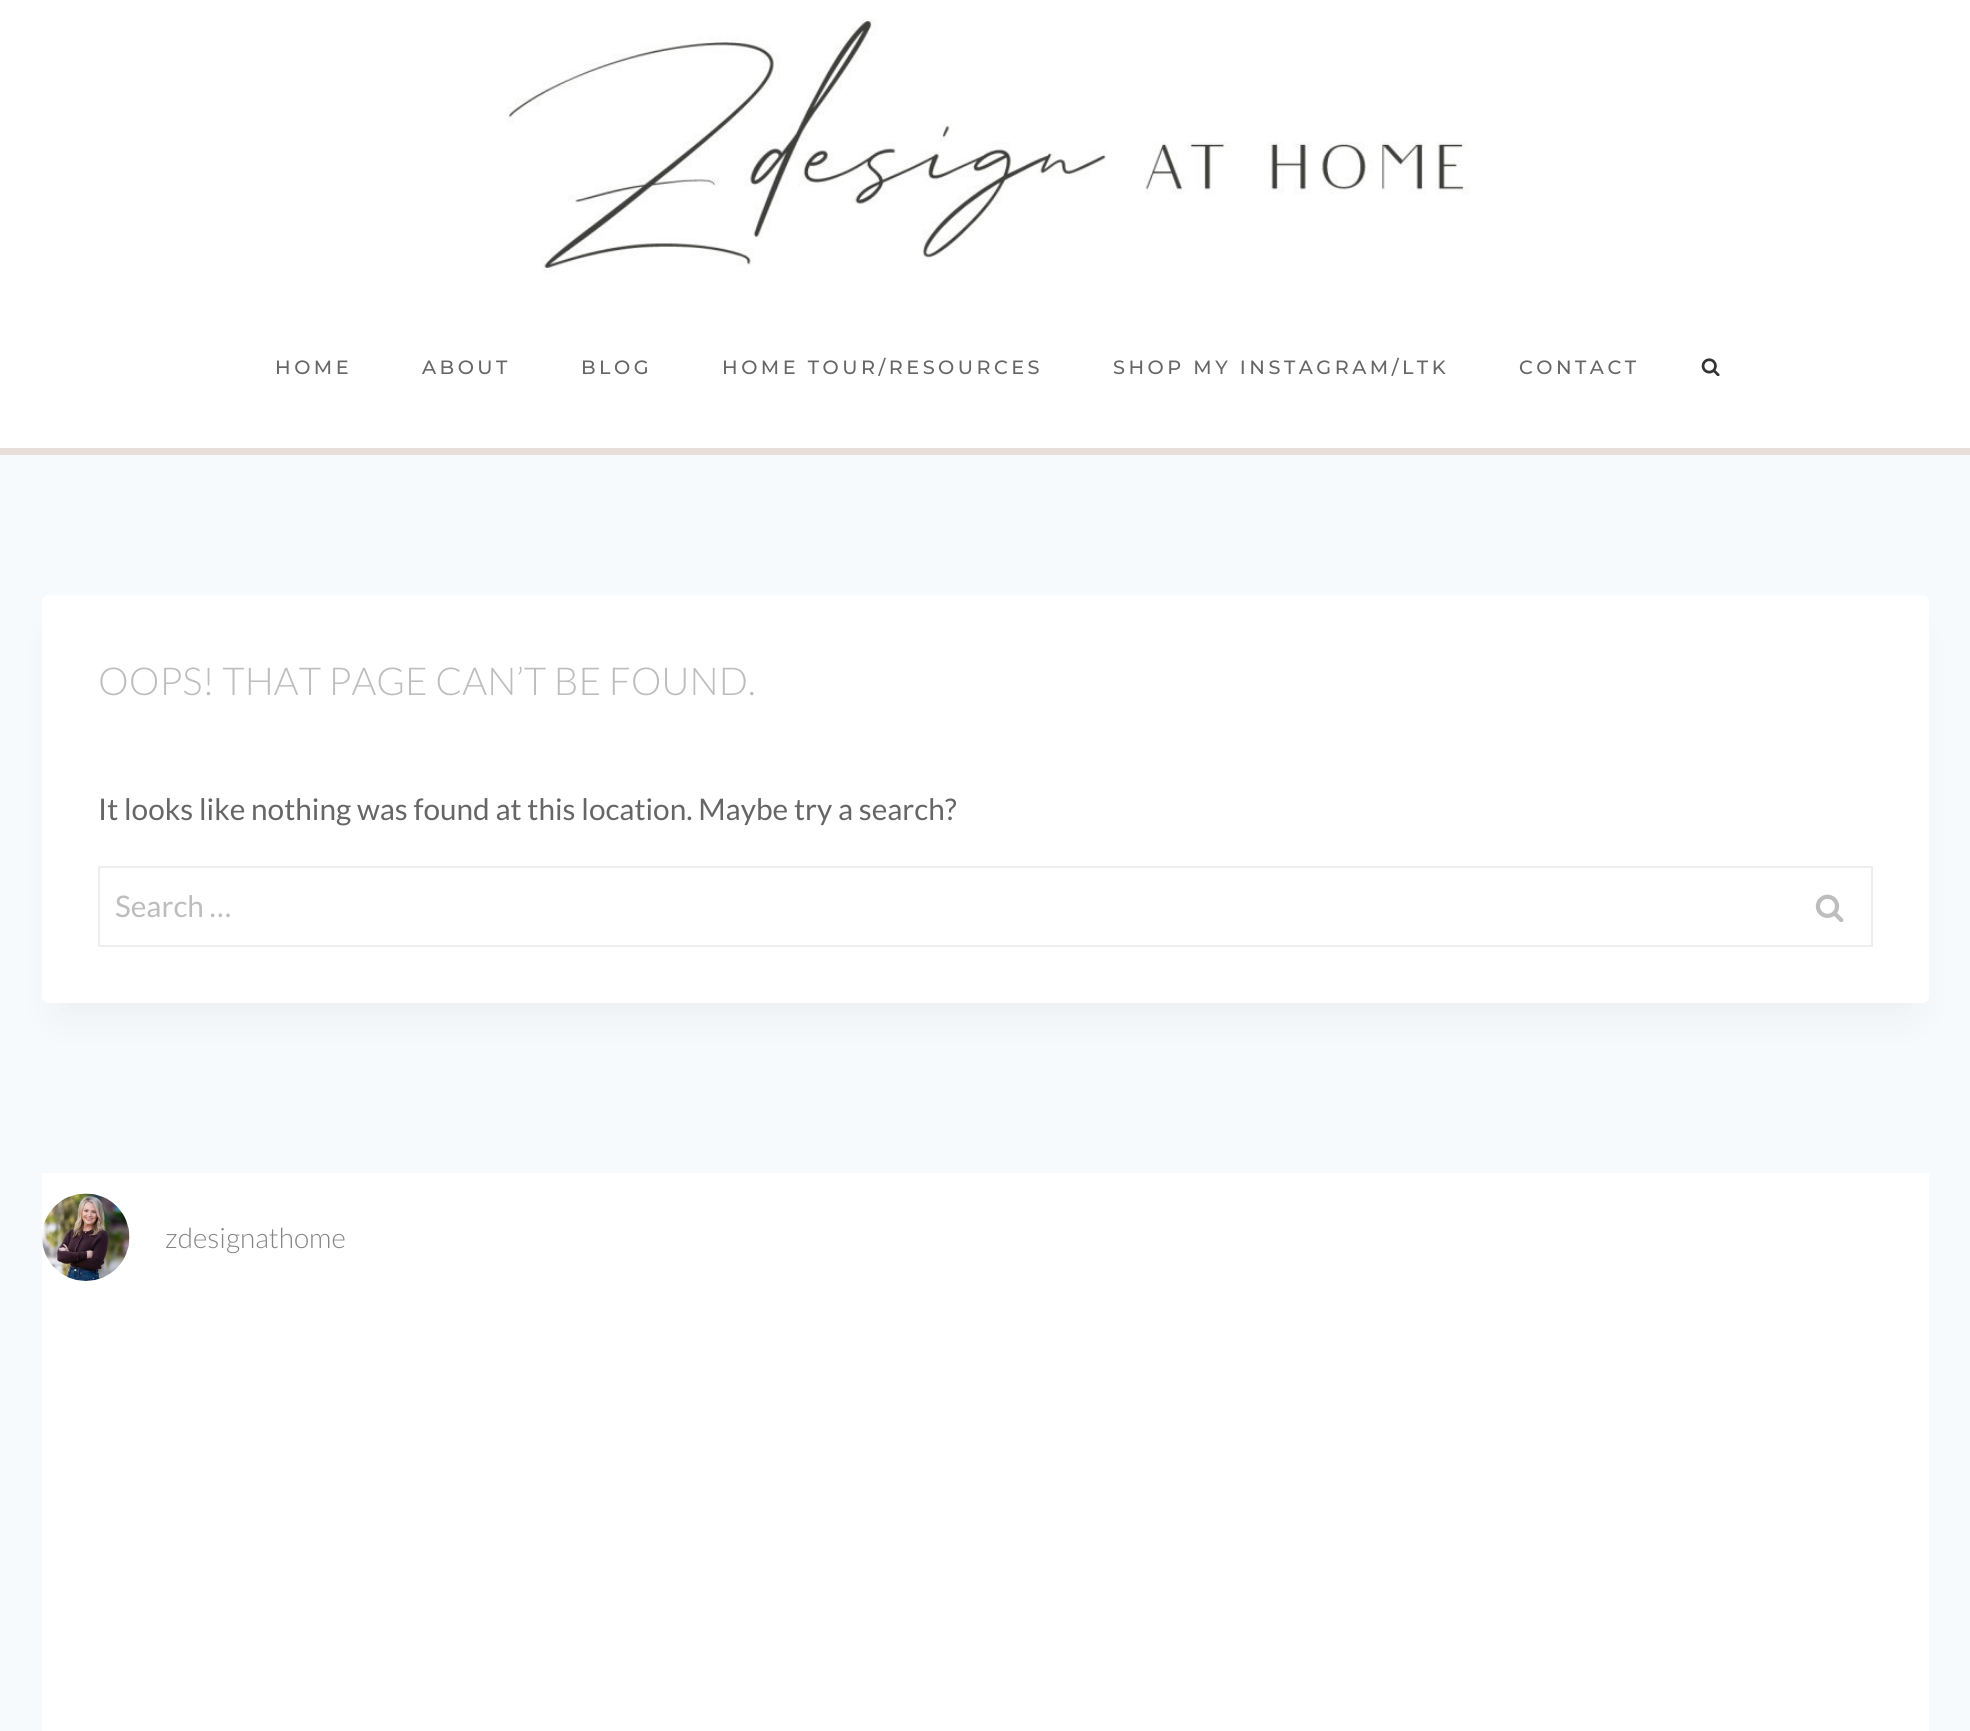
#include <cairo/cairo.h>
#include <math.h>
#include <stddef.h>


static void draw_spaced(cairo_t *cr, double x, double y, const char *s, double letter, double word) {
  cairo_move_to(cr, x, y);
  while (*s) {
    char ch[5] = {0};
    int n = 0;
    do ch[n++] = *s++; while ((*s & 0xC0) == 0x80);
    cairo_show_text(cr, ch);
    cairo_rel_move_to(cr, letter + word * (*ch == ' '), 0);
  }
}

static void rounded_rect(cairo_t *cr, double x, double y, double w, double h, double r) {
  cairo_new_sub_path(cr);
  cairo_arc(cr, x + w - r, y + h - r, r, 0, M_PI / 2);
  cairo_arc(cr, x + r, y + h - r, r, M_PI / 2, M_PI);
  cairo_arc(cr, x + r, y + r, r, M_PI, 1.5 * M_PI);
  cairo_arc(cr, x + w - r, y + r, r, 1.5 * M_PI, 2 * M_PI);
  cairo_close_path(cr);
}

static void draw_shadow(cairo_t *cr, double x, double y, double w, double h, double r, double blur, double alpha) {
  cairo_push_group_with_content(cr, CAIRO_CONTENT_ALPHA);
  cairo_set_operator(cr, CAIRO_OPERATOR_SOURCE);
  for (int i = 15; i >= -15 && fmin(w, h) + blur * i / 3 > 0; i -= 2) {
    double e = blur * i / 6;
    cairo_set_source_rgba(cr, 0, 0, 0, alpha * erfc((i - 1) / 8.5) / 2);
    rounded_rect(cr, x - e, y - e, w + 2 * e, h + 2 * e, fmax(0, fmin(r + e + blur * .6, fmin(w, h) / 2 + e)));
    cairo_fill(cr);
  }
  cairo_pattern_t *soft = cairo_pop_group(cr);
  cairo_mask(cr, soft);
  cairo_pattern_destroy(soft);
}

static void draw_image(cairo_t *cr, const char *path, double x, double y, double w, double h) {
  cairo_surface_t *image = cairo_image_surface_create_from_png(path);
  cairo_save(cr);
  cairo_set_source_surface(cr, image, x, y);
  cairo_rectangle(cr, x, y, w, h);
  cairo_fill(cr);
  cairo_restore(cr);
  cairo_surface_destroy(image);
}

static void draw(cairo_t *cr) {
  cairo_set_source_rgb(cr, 247 / 255.0, 250 / 255.0, 252 / 255.0);
  cairo_paint(cr);
  cairo_set_source_rgb(cr, 1, 1, 1);
  cairo_rectangle(cr, 0, 0, 1970, 448);
  cairo_fill(cr);
  draw_image(cr, "images/1.png", 506, 18, 964, 256);
  cairo_set_source_rgb(cr, 232 / 255.0, 223 / 255.0, 218 / 255.0);
  cairo_rectangle(cr, 0, 448, 1970, 7);
  cairo_fill(cr);
  draw_image(cr, "images/2.png", 1701, 358, 19, 18);
  cairo_set_source_rgb(cr, 0, 0, 0);
  draw_shadow(cr, 60, 639, 1851, 373, 0, 22, 0.05);
  cairo_set_source_rgb(cr, 1, 1, 1);
  rounded_rect(cr, 42, 595, 1887, 408, 7);
  cairo_fill(cr);
  cairo_rectangle(cr, 99, 867, 1773, 79);
  cairo_set_source_rgb(cr, 238 / 255.0, 238 / 255.0, 238 / 255.0);
  cairo_stroke(cr);
  draw_image(cr, "images/3.png", 1815, 894, 29, 28);
  cairo_set_source_rgb(cr, 1, 1, 1);
  cairo_rectangle(cr, 42, 1173, 1887, 558);
  cairo_fill(cr);
  draw_image(cr, "images/4.png", 42, 1193, 88, 88);
  cairo_select_font_face(cr, "Montserrat Thin", CAIRO_FONT_SLANT_NORMAL, CAIRO_FONT_WEIGHT_NORMAL);
  cairo_set_font_size(cr, 19.25);
  cairo_set_source_rgb(cr, 102 / 255.0, 102 / 255.0, 102 / 255.0);
  draw_spaced(cr, 275, 374, "HOME", 3.5, 0);
  draw_spaced(cr, 422, 374, "ABOUT", 3.5, 0);
  draw_spaced(cr, 581, 374, "BLOG", 3.5, 0);
  draw_spaced(cr, 722, 374, "HOME TOUR/RESOURCES", 3.5, 0);
  draw_spaced(cr, 1113, 374, "SHOP MY INSTAGRAM/LTK", 3.5, 0);
  draw_spaced(cr, 1519, 374, "CONTACT", 3.5, 0);
  cairo_select_font_face(cr, "Lato Light", CAIRO_FONT_SLANT_NORMAL, CAIRO_FONT_WEIGHT_NORMAL);
  cairo_set_font_size(cr, 38.5);
  cairo_set_source_rgb(cr, 189 / 255.0, 189 / 255.0, 189 / 255.0);
  cairo_move_to(cr, 98, 695);
  cairo_show_text(cr, "OOPS! THAT PAGE CAN’T BE FOUND.");
  cairo_select_font_face(cr, "Lato", CAIRO_FONT_SLANT_NORMAL, CAIRO_FONT_WEIGHT_NORMAL);
  cairo_set_font_size(cr, 29.75);
  cairo_set_source_rgb(cr, 102 / 255.0, 102 / 255.0, 102 / 255.0);
  cairo_move_to(cr, 98, 820);
  cairo_show_text(cr, "It looks like nothing was found at this location. Maybe try a search?");
  cairo_set_source_rgb(cr, 189 / 255.0, 189 / 255.0, 189 / 255.0);
  cairo_move_to(cr, 115, 917);
  cairo_show_text(cr, "Search …");
  cairo_select_font_face(cr, "Lato Light", CAIRO_FONT_SLANT_NORMAL, CAIRO_FONT_WEIGHT_NORMAL);
  cairo_set_font_size(cr, 28);
  cairo_set_source_rgb(cr, 132 / 255.0, 132 / 255.0, 132 / 255.0);
  cairo_move_to(cr, 165, 1248);
  cairo_show_text(cr, "zdesignathome");
}

int main(void) {
  cairo_surface_t *surface = cairo_image_surface_create(CAIRO_FORMAT_RGB24, 1970, 1731);
  cairo_t *cr = cairo_create(surface);
  cairo_font_options_t *options = cairo_font_options_create();
  cairo_font_options_set_hint_metrics(options, CAIRO_HINT_METRICS_OFF);
  cairo_font_options_set_hint_style(options, CAIRO_HINT_STYLE_NONE);
  cairo_set_font_options(cr, options);
  cairo_set_miter_limit(cr, 4);
  draw(cr);
  cairo_surface_write_to_png(surface, "out.png");
  cairo_font_options_destroy(options);
  cairo_destroy(cr);
  cairo_surface_destroy(surface);
  return 0;
}
